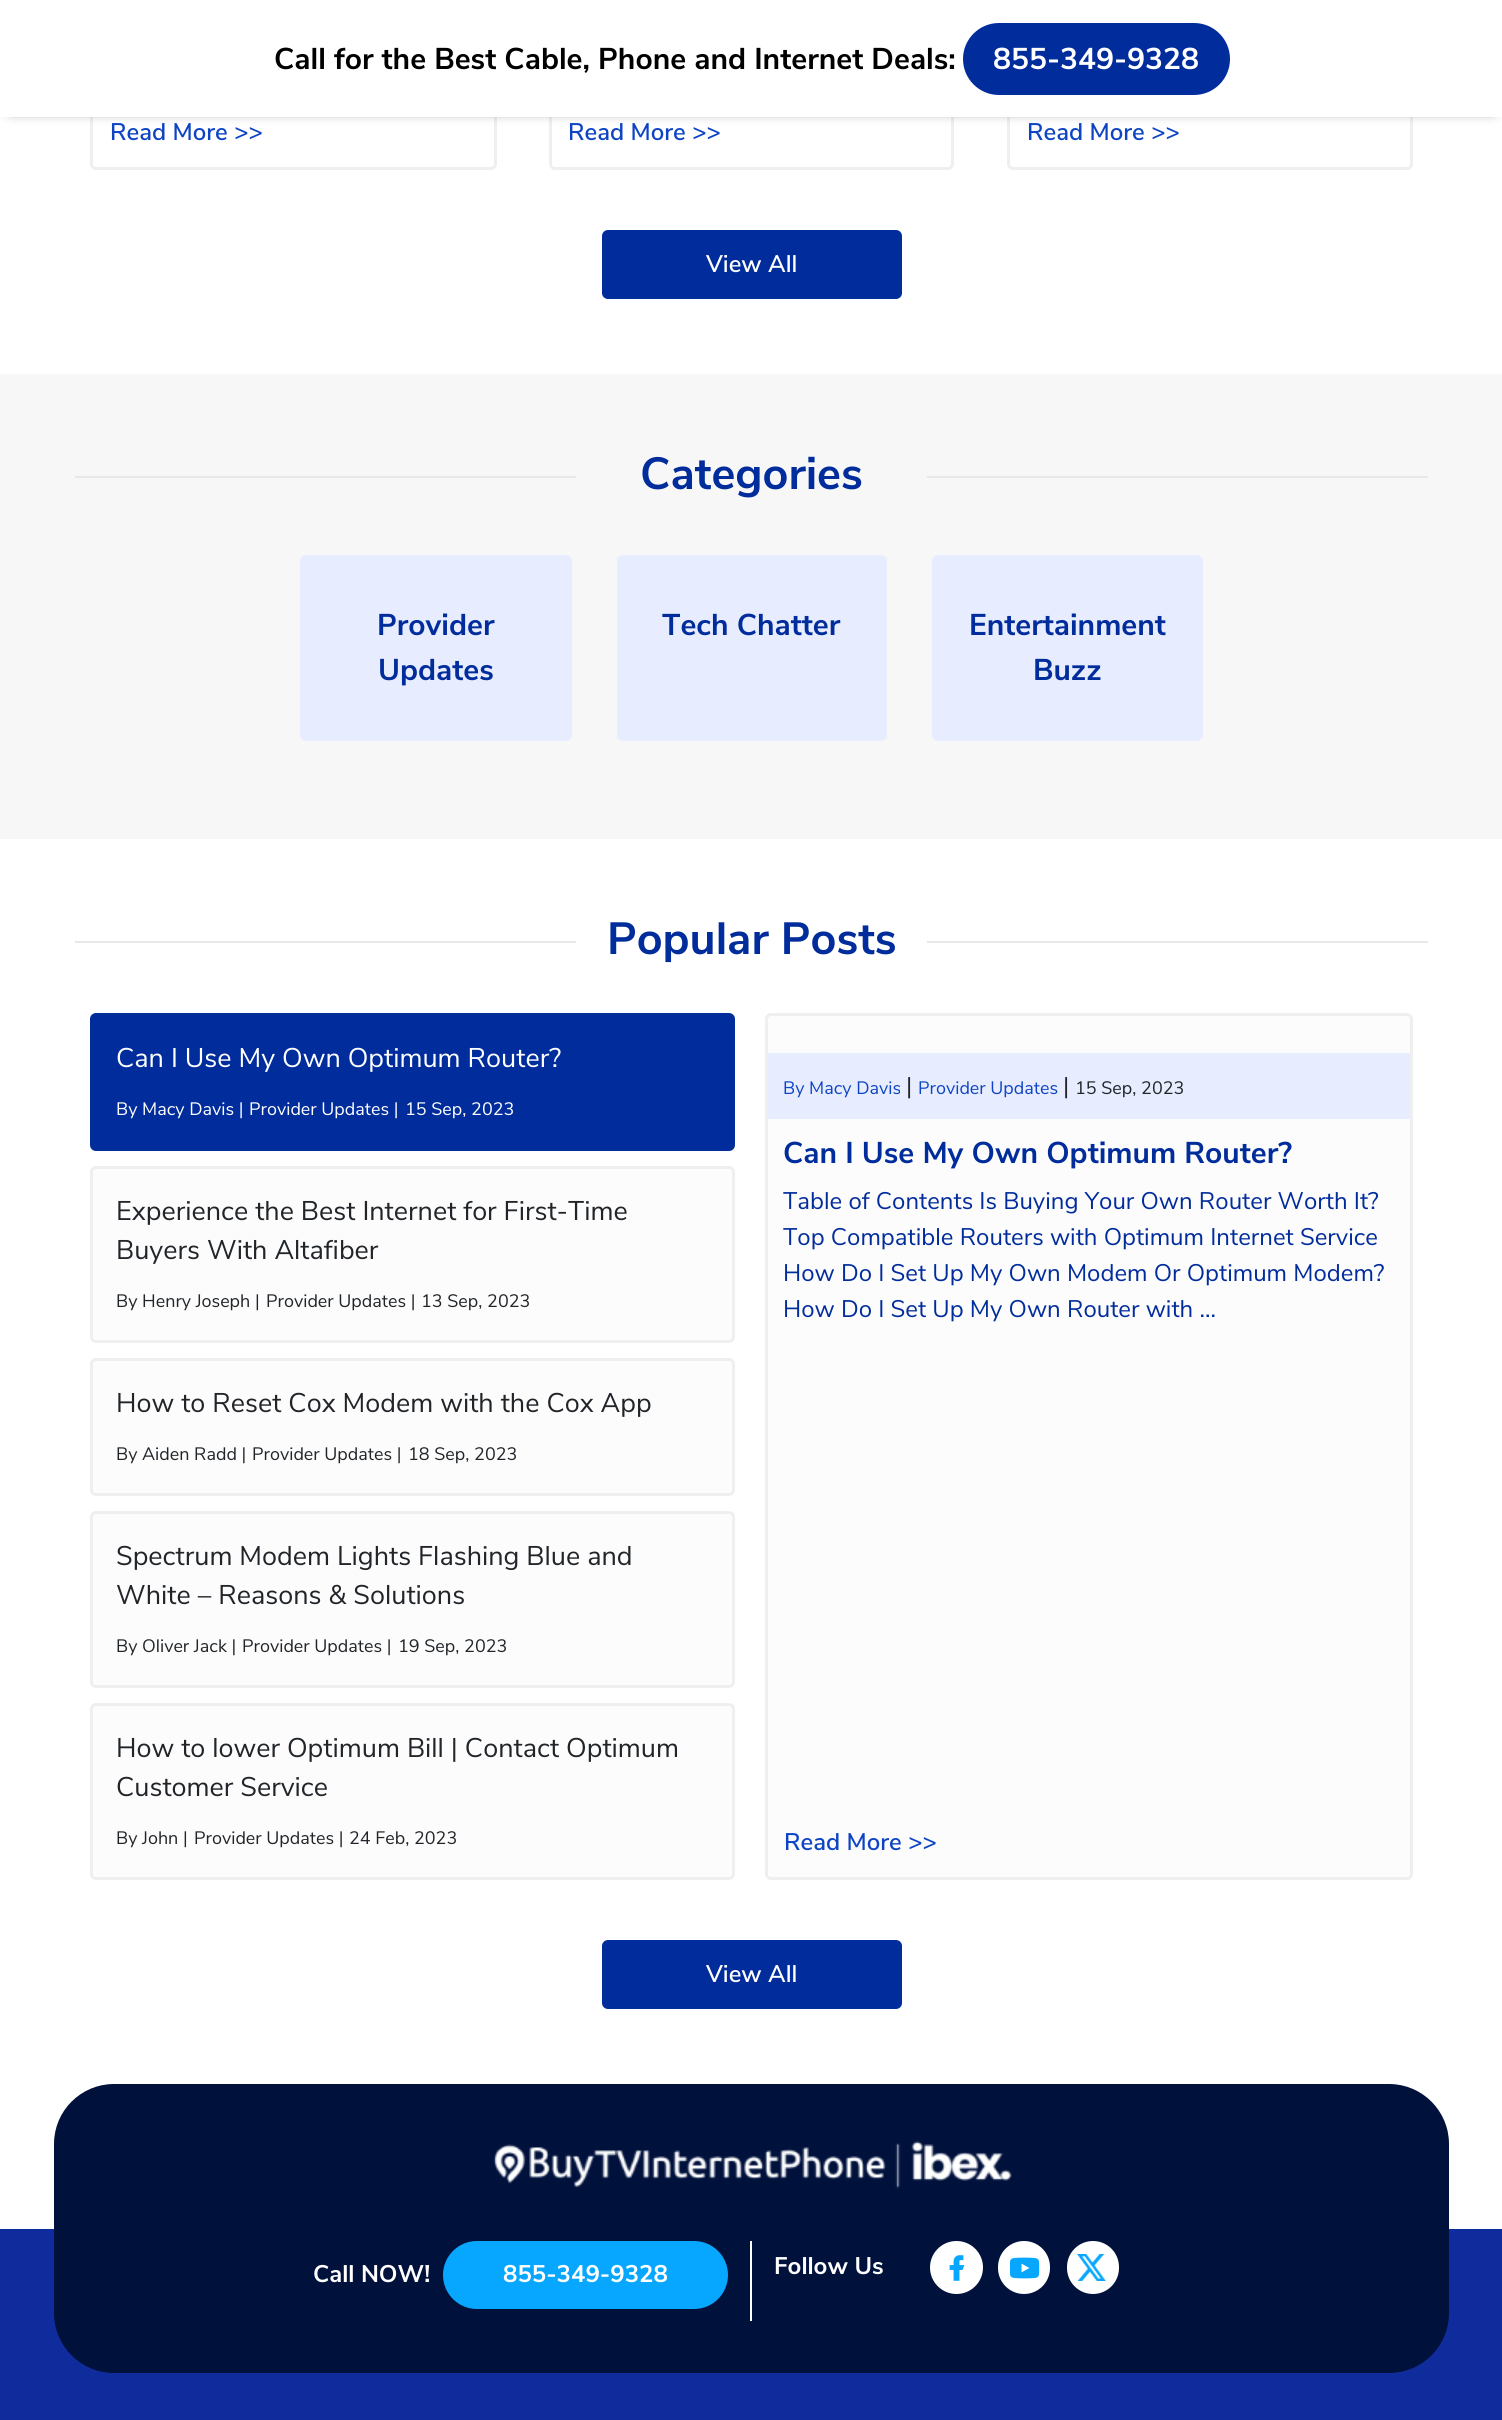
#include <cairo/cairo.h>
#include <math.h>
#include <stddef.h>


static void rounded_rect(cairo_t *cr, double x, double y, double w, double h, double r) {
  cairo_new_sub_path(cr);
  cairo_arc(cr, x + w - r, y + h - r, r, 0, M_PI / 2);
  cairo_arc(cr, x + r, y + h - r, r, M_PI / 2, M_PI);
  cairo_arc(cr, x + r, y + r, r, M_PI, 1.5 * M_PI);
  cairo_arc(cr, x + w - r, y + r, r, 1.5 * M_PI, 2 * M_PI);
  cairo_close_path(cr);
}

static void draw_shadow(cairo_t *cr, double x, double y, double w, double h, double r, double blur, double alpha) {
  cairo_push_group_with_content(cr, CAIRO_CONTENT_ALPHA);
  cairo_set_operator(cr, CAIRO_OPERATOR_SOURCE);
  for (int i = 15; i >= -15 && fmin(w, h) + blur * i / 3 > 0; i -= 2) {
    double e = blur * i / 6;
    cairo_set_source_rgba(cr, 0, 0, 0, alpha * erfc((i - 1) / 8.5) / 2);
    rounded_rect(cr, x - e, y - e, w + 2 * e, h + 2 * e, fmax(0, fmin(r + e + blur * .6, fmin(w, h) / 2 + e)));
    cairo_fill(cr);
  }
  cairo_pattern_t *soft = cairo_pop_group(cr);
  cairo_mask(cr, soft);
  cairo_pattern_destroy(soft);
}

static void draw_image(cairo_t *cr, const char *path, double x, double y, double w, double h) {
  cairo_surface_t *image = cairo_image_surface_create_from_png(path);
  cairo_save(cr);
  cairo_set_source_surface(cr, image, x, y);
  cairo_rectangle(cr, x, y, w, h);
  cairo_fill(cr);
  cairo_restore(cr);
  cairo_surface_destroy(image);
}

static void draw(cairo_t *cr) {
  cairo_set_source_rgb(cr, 1, 1, 1);
  cairo_paint(cr);
  rounded_rect(cr, 91.5, -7.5, 404, 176, 4.5);
  cairo_set_source_rgb(cr, 239 / 255.0, 239 / 255.0, 239 / 255.0);
  cairo_set_line_width(cr, 3);
  cairo_stroke(cr);
  rounded_rect(cr, 550.5, -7.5, 402, 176, 4.5);
  cairo_stroke(cr);
  rounded_rect(cr, 1008.5, -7.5, 403, 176, 4.5);
  cairo_stroke(cr);
  cairo_set_source_rgb(cr, 0, 0, 0);
  draw_shadow(cr, 11, 11, 1482, 96, 0, 7.5, 1);
  cairo_set_source_rgb(cr, 1, 1, 1);
  cairo_rectangle(cr, 0, 0, 1502, 117);
  cairo_fill(cr);
  cairo_set_source_rgb(cr, 1 / 255.0, 44 / 255.0, 156 / 255.0);
  rounded_rect(cr, 963, 23, 267, 72, 36);
  cairo_fill(cr);
  rounded_rect(cr, 602, 230, 300, 69, 6);
  cairo_fill(cr);
  cairo_set_source_rgb(cr, 247 / 255.0, 247 / 255.0, 247 / 255.0);
  cairo_rectangle(cr, 0, 374, 1502, 465);
  cairo_fill(cr);
  cairo_set_source_rgb(cr, 232 / 255.0, 232 / 255.0, 232 / 255.0);
  cairo_rectangle(cr, 75, 476, 501, 2);
  cairo_fill(cr);
  cairo_rectangle(cr, 927, 476, 501, 2);
  cairo_fill(cr);
  cairo_set_source_rgb(cr, 231 / 255.0, 237 / 255.0, 1);
  rounded_rect(cr, 301.5, 556.5, 269, 183, 4.5);
  cairo_fill_preserve(cr);
  cairo_stroke(cr);
  rounded_rect(cr, 618.5, 556.5, 267, 183, 4.5);
  cairo_fill_preserve(cr);
  cairo_stroke(cr);
  rounded_rect(cr, 933.5, 556.5, 268, 183, 4.5);
  cairo_fill_preserve(cr);
  cairo_stroke(cr);
  cairo_set_source_rgb(cr, 232 / 255.0, 232 / 255.0, 232 / 255.0);
  cairo_rectangle(cr, 75, 941, 501, 2);
  cairo_fill(cr);
  cairo_rectangle(cr, 927, 941, 501, 2);
  cairo_fill(cr);
  cairo_set_source_rgb(cr, 1 / 255.0, 44 / 255.0, 156 / 255.0);
  rounded_rect(cr, 91.5, 1014.5, 642, 135, 4.5);
  cairo_fill_preserve(cr);
  cairo_stroke(cr);
  cairo_set_source_rgb(cr, 252 / 255.0, 252 / 255.0, 252 / 255.0);
  rounded_rect(cr, 91.5, 1167.5, 642, 174, 4.5);
  cairo_fill_preserve(cr);
  cairo_set_source_rgb(cr, 239 / 255.0, 239 / 255.0, 239 / 255.0);
  cairo_stroke(cr);
  cairo_set_source_rgb(cr, 252 / 255.0, 252 / 255.0, 252 / 255.0);
  rounded_rect(cr, 91.5, 1359.5, 642, 135, 4.5);
  cairo_fill_preserve(cr);
  cairo_set_source_rgb(cr, 239 / 255.0, 239 / 255.0, 239 / 255.0);
  cairo_stroke(cr);
  cairo_set_source_rgb(cr, 252 / 255.0, 252 / 255.0, 252 / 255.0);
  rounded_rect(cr, 91.5, 1512.5, 642, 174, 4.5);
  cairo_fill_preserve(cr);
  cairo_set_source_rgb(cr, 239 / 255.0, 239 / 255.0, 239 / 255.0);
  cairo_stroke(cr);
  cairo_set_source_rgb(cr, 252 / 255.0, 252 / 255.0, 252 / 255.0);
  rounded_rect(cr, 91.5, 1704.5, 642, 174, 4.5);
  cairo_fill_preserve(cr);
  cairo_set_source_rgb(cr, 239 / 255.0, 239 / 255.0, 239 / 255.0);
  cairo_stroke(cr);
  cairo_set_source_rgb(cr, 252 / 255.0, 252 / 255.0, 252 / 255.0);
  rounded_rect(cr, 766.5, 1014.5, 645, 864, 4.5);
  cairo_fill_preserve(cr);
  cairo_set_source_rgb(cr, 239 / 255.0, 239 / 255.0, 239 / 255.0);
  cairo_stroke(cr);
  cairo_set_source_rgb(cr, 231 / 255.0, 237 / 255.0, 1);
  cairo_rectangle(cr, 768, 1053, 642, 66);
  cairo_fill(cr);
  cairo_set_source_rgb(cr, 1 / 255.0, 44 / 255.0, 156 / 255.0);
  rounded_rect(cr, 602, 1940, 300, 69, 6);
  cairo_fill(cr);
  cairo_set_source_rgb(cr, 16 / 255.0, 44 / 255.0, 156 / 255.0);
  cairo_rectangle(cr, 0, 2229, 1502, 191);
  cairo_fill(cr);
  cairo_set_source_rgb(cr, 0, 17 / 255.0, 60 / 255.0);
  rounded_rect(cr, 54, 2084, 1395, 289, 60);
  cairo_fill(cr);
  draw_image(cr, "images/1.png", 493, 2141, 519, 48);
  cairo_set_source_rgb(cr, 1, 1, 1);
  cairo_rectangle(cr, 750, 2241, 2, 80);
  cairo_fill(cr);
  cairo_set_source_rgb(cr, 8 / 255.0, 167 / 255.0, 1);
  rounded_rect(cr, 443, 2241, 285, 68, 34);
  cairo_fill(cr);
  cairo_set_source_rgb(cr, 1, 1, 1);
  cairo_arc(cr, 956.5, 2267.5, 26.5, 0, 2 * M_PI);
  cairo_fill(cr);
  draw_image(cr, "images/2.png", 949, 2255, 16, 26);
  rounded_rect(cr, 998, 2241, 52, 53, 26);
  cairo_fill(cr);
  draw_image(cr, "images/3.png", 1010, 2257, 30, 22);
  rounded_rect(cr, 1067, 2241, 52, 53, 26);
  cairo_fill(cr);
  draw_image(cr, "images/4.png", 1077, 2254, 29, 27);
  cairo_select_font_face(cr, "Nunito Sans", CAIRO_FONT_SLANT_NORMAL, CAIRO_FONT_WEIGHT_BOLD);
  cairo_set_font_size(cr, 30);
  cairo_set_source_rgb(cr, 0, 0, 0);
  cairo_move_to(cr, 274, 69);
  cairo_show_text(cr, "Call for the Best Cable, Phone and Internet Deals:");
  cairo_set_source_rgb(cr, 1, 1, 1);
  cairo_move_to(cr, 993, 69);
  cairo_show_text(cr, "855-349-9328");
  cairo_select_font_face(cr, "Nunito Sans SemiBold", CAIRO_FONT_SLANT_NORMAL, CAIRO_FONT_WEIGHT_NORMAL);
  cairo_set_font_size(cr, 24);
  cairo_set_source_rgb(cr, 14 / 255.0, 68 / 255.0, 196 / 255.0);
  cairo_move_to(cr, 110, 140);
  cairo_show_text(cr, "Read More >>");
  cairo_move_to(cr, 568, 140);
  cairo_show_text(cr, "Read More >>");
  cairo_move_to(cr, 1027, 140);
  cairo_show_text(cr, "Read More >>");
  cairo_set_source_rgb(cr, 1, 1, 1);
  cairo_move_to(cr, 706, 272);
  cairo_show_text(cr, "View All");
  cairo_select_font_face(cr, "Nunito Sans", CAIRO_FONT_SLANT_NORMAL, CAIRO_FONT_WEIGHT_BOLD);
  cairo_set_font_size(cr, 45);
  cairo_set_source_rgb(cr, 1 / 255.0, 44 / 255.0, 156 / 255.0);
  cairo_move_to(cr, 640, 489);
  cairo_show_text(cr, "Categories");
  cairo_set_font_size(cr, 30);
  cairo_move_to(cr, 377, 635);
  cairo_show_text(cr, "Provider");
  cairo_move_to(cr, 378, 680);
  cairo_show_text(cr, "Updates");
  cairo_move_to(cr, 662, 635);
  cairo_show_text(cr, "Tech Chatter");
  cairo_move_to(cr, 969, 635);
  cairo_show_text(cr, "Entertainment");
  cairo_move_to(cr, 1033, 680);
  cairo_show_text(cr, "Buzz");
  cairo_set_font_size(cr, 45);
  cairo_move_to(cr, 607, 954);
  cairo_show_text(cr, "Popular Posts");
  cairo_select_font_face(cr, "Nunito Sans", CAIRO_FONT_SLANT_NORMAL, CAIRO_FONT_WEIGHT_NORMAL);
  cairo_set_font_size(cr, 27);
  cairo_set_source_rgb(cr, 1, 1, 1);
  cairo_move_to(cr, 116, 1067);
  cairo_show_text(cr, "Can I Use My Own Optimum Router?");
  cairo_set_font_size(cr, 18);
  cairo_move_to(cr, 116, 1115);
  cairo_show_text(cr, "By Macy Davis |");
  cairo_move_to(cr, 249, 1115);
  cairo_show_text(cr, "Provider Updates |");
  cairo_move_to(cr, 405, 1115);
  cairo_show_text(cr, "15 Sep, 2023");
  cairo_set_font_size(cr, 27);
  cairo_set_source_rgb(cr, 33 / 255.0, 37 / 255.0, 41 / 255.0);
  cairo_move_to(cr, 116, 1220);
  cairo_show_text(cr, "Experience the Best Internet for First-Time");
  cairo_move_to(cr, 116, 1259);
  cairo_show_text(cr, "Buyers With Altafiber");
  cairo_set_font_size(cr, 18);
  cairo_move_to(cr, 116, 1307);
  cairo_show_text(cr, "By Henry Joseph |");
  cairo_move_to(cr, 266, 1307);
  cairo_show_text(cr, "Provider Updates |");
  cairo_move_to(cr, 421, 1307);
  cairo_show_text(cr, "13 Sep, 2023");
  cairo_set_font_size(cr, 27);
  cairo_move_to(cr, 116, 1412);
  cairo_show_text(cr, "How to Reset Cox Modem with the Cox App");
  cairo_set_font_size(cr, 18);
  cairo_move_to(cr, 116, 1460);
  cairo_show_text(cr, "By Aiden Radd |");
  cairo_move_to(cr, 252, 1460);
  cairo_show_text(cr, "Provider Updates |");
  cairo_move_to(cr, 408, 1460);
  cairo_show_text(cr, "18 Sep, 2023");
  cairo_set_font_size(cr, 27);
  cairo_move_to(cr, 116, 1565);
  cairo_show_text(cr, "Spectrum Modem Lights Flashing Blue and");
  cairo_move_to(cr, 116, 1604);
  cairo_show_text(cr, "White – Reasons & Solutions");
  cairo_set_font_size(cr, 18);
  cairo_move_to(cr, 116, 1652);
  cairo_show_text(cr, "By Oliver Jack |");
  cairo_move_to(cr, 242, 1652);
  cairo_show_text(cr, "Provider Updates |");
  cairo_move_to(cr, 398, 1652);
  cairo_show_text(cr, "19 Sep, 2023");
  cairo_set_font_size(cr, 27);
  cairo_move_to(cr, 116, 1757);
  cairo_show_text(cr, "How to lower Optimum Bill | Contact Optimum");
  cairo_move_to(cr, 116, 1796);
  cairo_show_text(cr, "Customer Service");
  cairo_set_font_size(cr, 18);
  cairo_move_to(cr, 116, 1844);
  cairo_show_text(cr, "By John |");
  cairo_move_to(cr, 194, 1844);
  cairo_show_text(cr, "Provider Updates |");
  cairo_move_to(cr, 349, 1844);
  cairo_show_text(cr, "24 Feb, 2023");
  cairo_set_source_rgb(cr, 14 / 255.0, 68 / 255.0, 196 / 255.0);
  cairo_move_to(cr, 783, 1094);
  cairo_show_text(cr, "By Macy Davis");
  cairo_set_font_size(cr, 24);
  cairo_set_source_rgb(cr, 33 / 255.0, 37 / 255.0, 41 / 255.0);
  cairo_move_to(cr, 906, 1094);
  cairo_show_text(cr, "|");
  cairo_set_font_size(cr, 18);
  cairo_set_source_rgb(cr, 14 / 255.0, 68 / 255.0, 196 / 255.0);
  cairo_move_to(cr, 918, 1094);
  cairo_show_text(cr, "Provider Updates");
  cairo_set_font_size(cr, 24);
  cairo_set_source_rgb(cr, 33 / 255.0, 37 / 255.0, 41 / 255.0);
  cairo_move_to(cr, 1063, 1094);
  cairo_show_text(cr, "|");
  cairo_set_font_size(cr, 18);
  cairo_move_to(cr, 1075, 1094);
  cairo_show_text(cr, "15 Sep, 2023");
  cairo_select_font_face(cr, "Nunito Sans", CAIRO_FONT_SLANT_NORMAL, CAIRO_FONT_WEIGHT_BOLD);
  cairo_set_font_size(cr, 30);
  cairo_set_source_rgb(cr, 1 / 255.0, 44 / 255.0, 156 / 255.0);
  cairo_move_to(cr, 783, 1163);
  cairo_show_text(cr, "Can I Use My Own Optimum Router?");
  cairo_select_font_face(cr, "Nunito Sans", CAIRO_FONT_SLANT_NORMAL, CAIRO_FONT_WEIGHT_NORMAL);
  cairo_set_font_size(cr, 24);
  cairo_move_to(cr, 783, 1209);
  cairo_show_text(cr, "Table of Contents Is Buying Your Own Router Worth It?");
  cairo_move_to(cr, 783, 1245);
  cairo_show_text(cr, "Top Compatible Routers with Optimum Internet Service");
  cairo_move_to(cr, 783, 1281);
  cairo_show_text(cr, "How Do I Set Up My Own Modem Or Optimum Modem?");
  cairo_move_to(cr, 783, 1317);
  cairo_show_text(cr, "How Do I Set Up My Own Router with ...");
  cairo_select_font_face(cr, "Nunito Sans SemiBold", CAIRO_FONT_SLANT_NORMAL, CAIRO_FONT_WEIGHT_NORMAL);
  cairo_set_source_rgb(cr, 14 / 255.0, 68 / 255.0, 196 / 255.0);
  cairo_move_to(cr, 784, 1850);
  cairo_show_text(cr, "Read More >>");
  cairo_set_source_rgb(cr, 1, 1, 1);
  cairo_move_to(cr, 706, 1982);
  cairo_show_text(cr, "View All");
  cairo_select_font_face(cr, "Nunito Sans", CAIRO_FONT_SLANT_NORMAL, CAIRO_FONT_WEIGHT_BOLD);
  cairo_move_to(cr, 313, 2282);
  cairo_show_text(cr, "Call NOW!");
  cairo_move_to(cr, 503, 2282);
  cairo_show_text(cr, "855-349-9328");
  cairo_move_to(cr, 774, 2274);
  cairo_show_text(cr, "Follow Us");
}

int main(void) {
  cairo_surface_t *surface = cairo_image_surface_create(CAIRO_FORMAT_RGB24, 1502, 2420);
  cairo_t *cr = cairo_create(surface);
  cairo_font_options_t *options = cairo_font_options_create();
  cairo_font_options_set_hint_metrics(options, CAIRO_HINT_METRICS_OFF);
  cairo_font_options_set_hint_style(options, CAIRO_HINT_STYLE_NONE);
  cairo_set_font_options(cr, options);
  cairo_set_miter_limit(cr, 4);
  draw(cr);
  cairo_surface_write_to_png(surface, "out.png");
  cairo_font_options_destroy(options);
  cairo_destroy(cr);
  cairo_surface_destroy(surface);
  return 0;
}
